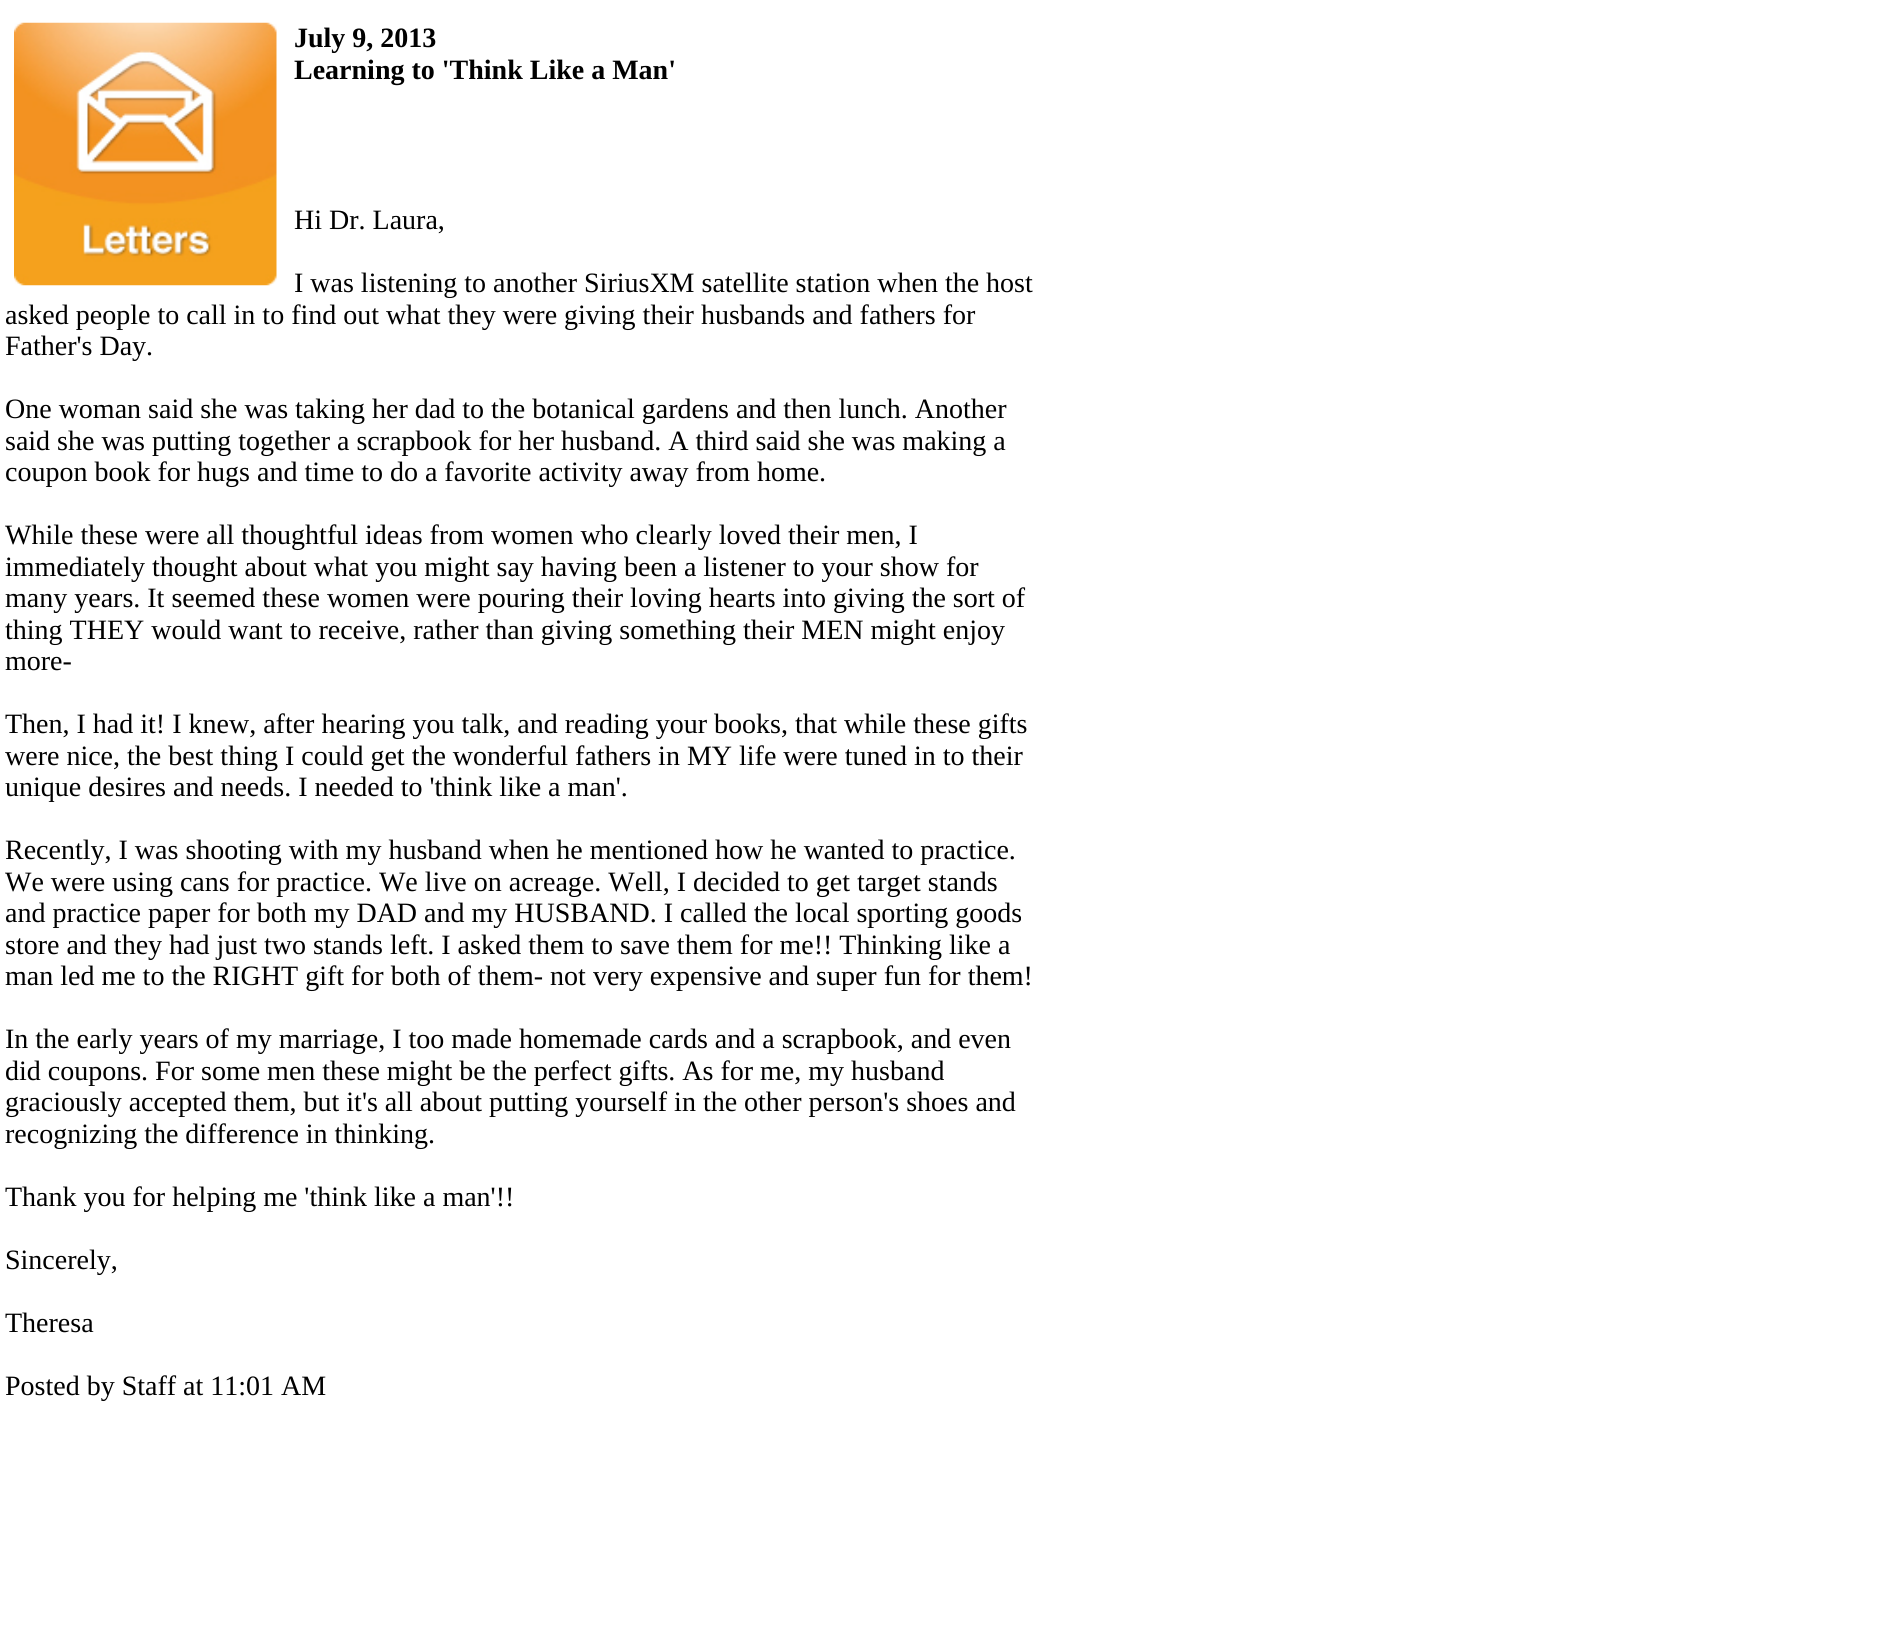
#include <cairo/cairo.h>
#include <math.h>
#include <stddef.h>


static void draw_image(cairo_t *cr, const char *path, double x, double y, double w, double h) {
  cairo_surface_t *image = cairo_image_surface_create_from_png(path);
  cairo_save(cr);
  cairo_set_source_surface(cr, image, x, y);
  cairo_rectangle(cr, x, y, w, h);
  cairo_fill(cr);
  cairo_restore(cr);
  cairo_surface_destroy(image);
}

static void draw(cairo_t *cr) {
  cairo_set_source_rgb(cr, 1, 1, 1);
  cairo_paint(cr);
  draw_image(cr, "images/1.png", 14, 22, 263, 264);
  cairo_select_font_face(cr, "Liberation Serif", CAIRO_FONT_SLANT_NORMAL, CAIRO_FONT_WEIGHT_BOLD);
  cairo_set_font_size(cr, 28);
  cairo_set_source_rgb(cr, 0, 0, 0);
  cairo_move_to(cr, 294, 47);
  cairo_show_text(cr, "July 9, 2013");
  cairo_move_to(cr, 294, 79);
  cairo_show_text(cr, "Learning to 'Think Like a Man'");
  cairo_select_font_face(cr, "Liberation Serif", CAIRO_FONT_SLANT_NORMAL, CAIRO_FONT_WEIGHT_NORMAL);
  cairo_move_to(cr, 294, 229);
  cairo_show_text(cr, "Hi Dr. Laura,");
  cairo_move_to(cr, 294, 292);
  cairo_show_text(cr, "I was listening to another SiriusXM satellite station when the host");
  cairo_move_to(cr, 5, 324);
  cairo_show_text(cr, "asked people to call in to find out what they were giving their husbands and fathers for");
  cairo_move_to(cr, 5, 355);
  cairo_show_text(cr, "Father's Day.");
  cairo_move_to(cr, 5, 418);
  cairo_show_text(cr, "One woman said she was taking her dad to the botanical gardens and then lunch. Another");
  cairo_move_to(cr, 5, 450);
  cairo_show_text(cr, "said she was putting together a scrapbook for her husband. A third said she was making a");
  cairo_move_to(cr, 5, 481);
  cairo_show_text(cr, "coupon book for hugs and time to do a favorite activity away from home.");
  cairo_move_to(cr, 5, 544);
  cairo_show_text(cr, "While these were all thoughtful ideas from women who clearly loved their men, I");
  cairo_move_to(cr, 5, 576);
  cairo_show_text(cr, "immediately thought about what you might say having been a listener to your show for");
  cairo_move_to(cr, 5, 607);
  cairo_show_text(cr, "many years. It seemed these women were pouring their loving hearts into giving the sort of");
  cairo_move_to(cr, 5, 639);
  cairo_show_text(cr, "thing THEY would want to receive, rather than giving something their MEN might enjoy");
  cairo_move_to(cr, 5, 670);
  cairo_show_text(cr, "more-");
  cairo_move_to(cr, 5, 733);
  cairo_show_text(cr, "Then, I had it! I knew, after hearing you talk, and reading your books, that while these gifts");
  cairo_move_to(cr, 5, 765);
  cairo_show_text(cr, "were nice, the best thing I could get the wonderful fathers in MY life were tuned in to their");
  cairo_move_to(cr, 5, 796);
  cairo_show_text(cr, "unique desires and needs. I needed to 'think like a man'.");
  cairo_move_to(cr, 5, 859);
  cairo_show_text(cr, "Recently, I was shooting with my husband when he mentioned how he wanted to practice.");
  cairo_move_to(cr, 5, 891);
  cairo_show_text(cr, "We were using cans for practice. We live on acreage. Well, I decided to get target stands");
  cairo_move_to(cr, 5, 922);
  cairo_show_text(cr, "and practice paper for both my DAD and my HUSBAND. I called the local sporting goods");
  cairo_move_to(cr, 5, 954);
  cairo_show_text(cr, "store and they had just two stands left. I asked them to save them for me!! Thinking like a");
  cairo_move_to(cr, 5, 985);
  cairo_show_text(cr, "man led me to the RIGHT gift for both of them- not very expensive and super fun for them!");
  cairo_move_to(cr, 5, 1048);
  cairo_show_text(cr, "In the early years of my marriage, I too made homemade cards and a scrapbook, and even");
  cairo_move_to(cr, 5, 1080);
  cairo_show_text(cr, "did coupons. For some men these might be the perfect gifts. As for me, my husband");
  cairo_move_to(cr, 5, 1111);
  cairo_show_text(cr, "graciously accepted them, but it's all about putting yourself in the other person's shoes and");
  cairo_move_to(cr, 5, 1143);
  cairo_show_text(cr, "recognizing the difference in thinking.");
  cairo_move_to(cr, 5, 1206);
  cairo_show_text(cr, "Thank you for helping me 'think like a man'!!");
  cairo_move_to(cr, 5, 1269);
  cairo_show_text(cr, "Sincerely,");
  cairo_move_to(cr, 5, 1332);
  cairo_show_text(cr, "Theresa");
  cairo_move_to(cr, 5, 1395);
  cairo_show_text(cr, "Posted by Staff at 11:01 AM");
}

int main(void) {
  cairo_surface_t *surface = cairo_image_surface_create(CAIRO_FORMAT_RGB24, 1884, 1625);
  cairo_t *cr = cairo_create(surface);
  cairo_font_options_t *options = cairo_font_options_create();
  cairo_font_options_set_hint_metrics(options, CAIRO_HINT_METRICS_OFF);
  cairo_font_options_set_hint_style(options, CAIRO_HINT_STYLE_NONE);
  cairo_set_font_options(cr, options);
  cairo_set_miter_limit(cr, 4);
  draw(cr);
  cairo_surface_write_to_png(surface, "out.png");
  cairo_font_options_destroy(options);
  cairo_destroy(cr);
  cairo_surface_destroy(surface);
  return 0;
}
